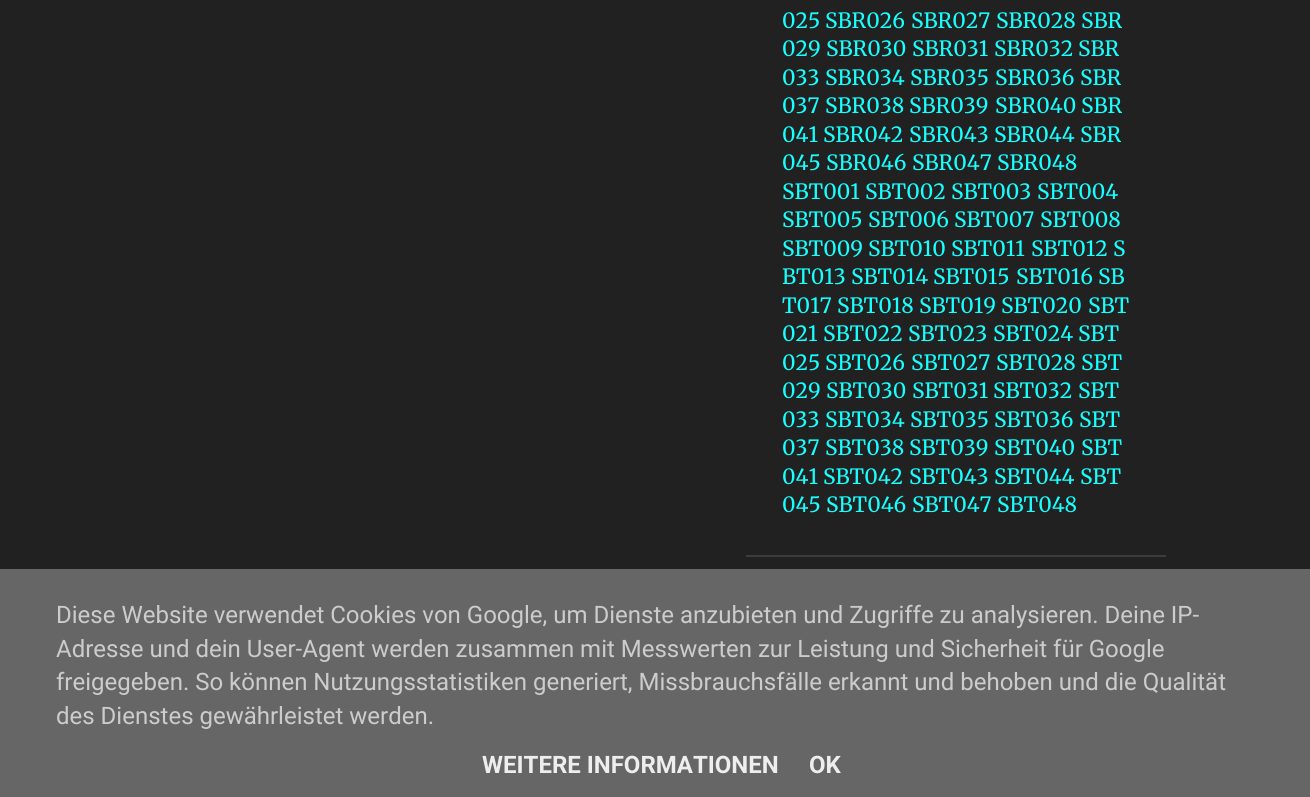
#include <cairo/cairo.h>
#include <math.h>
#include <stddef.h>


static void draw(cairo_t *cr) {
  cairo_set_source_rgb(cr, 33 / 255.0, 33 / 255.0, 33 / 255.0);
  cairo_paint(cr);
  cairo_set_source_rgb(cr, 60 / 255.0, 60 / 255.0, 60 / 255.0);
  cairo_rectangle(cr, 746, 555, 420, 2);
  cairo_fill(cr);
  cairo_set_source_rgb(cr, 102 / 255.0, 102 / 255.0, 102 / 255.0);
  cairo_rectangle(cr, 0, 569, 1310, 228);
  cairo_fill(cr);
  cairo_select_font_face(cr, "Merriweather Light", CAIRO_FONT_SLANT_NORMAL, CAIRO_FONT_WEIGHT_NORMAL);
  cairo_set_font_size(cr, 21);
  cairo_set_source_rgb(cr, 24 / 255.0, 1, 1);
  cairo_move_to(cr, 782, 28);
  cairo_show_text(cr, "025");
  cairo_move_to(cr, 825, 28);
  cairo_show_text(cr, "SBR026");
  cairo_move_to(cr, 911, 28);
  cairo_show_text(cr, "SBR027");
  cairo_move_to(cr, 996, 28);
  cairo_show_text(cr, "SBR028");
  cairo_move_to(cr, 1081, 28);
  cairo_show_text(cr, "SBR");
  cairo_move_to(cr, 782, 56);
  cairo_show_text(cr, "029");
  cairo_move_to(cr, 826, 56);
  cairo_show_text(cr, "SBR030");
  cairo_move_to(cr, 912, 56);
  cairo_show_text(cr, "SBR031");
  cairo_move_to(cr, 994, 56);
  cairo_show_text(cr, "SBR032");
  cairo_move_to(cr, 1078, 56);
  cairo_show_text(cr, "SBR");
  cairo_move_to(cr, 782, 85);
  cairo_show_text(cr, "033");
  cairo_move_to(cr, 825, 85);
  cairo_show_text(cr, "SBR034");
  cairo_move_to(cr, 910, 85);
  cairo_show_text(cr, "SBR035");
  cairo_move_to(cr, 995, 85);
  cairo_show_text(cr, "SBR036");
  cairo_move_to(cr, 1080, 85);
  cairo_show_text(cr, "SBR");
  cairo_move_to(cr, 782, 113);
  cairo_show_text(cr, "037");
  cairo_move_to(cr, 825, 113);
  cairo_show_text(cr, "SBR038");
  cairo_move_to(cr, 909, 113);
  cairo_show_text(cr, "SBR039");
  cairo_move_to(cr, 995, 113);
  cairo_show_text(cr, "SBR040");
  cairo_move_to(cr, 1081, 113);
  cairo_show_text(cr, "SBR");
  cairo_move_to(cr, 782, 142);
  cairo_show_text(cr, "041");
  cairo_move_to(cr, 823, 142);
  cairo_show_text(cr, "SBR042");
  cairo_move_to(cr, 909, 142);
  cairo_show_text(cr, "SBR043");
  cairo_move_to(cr, 994, 142);
  cairo_show_text(cr, "SBR044");
  cairo_move_to(cr, 1080, 142);
  cairo_show_text(cr, "SBR");
  cairo_move_to(cr, 782, 170);
  cairo_show_text(cr, "045");
  cairo_move_to(cr, 826, 170);
  cairo_show_text(cr, "SBR046");
  cairo_move_to(cr, 912, 170);
  cairo_show_text(cr, "SBR047");
  cairo_move_to(cr, 997, 170);
  cairo_show_text(cr, "SBR048");
  cairo_move_to(cr, 782, 199);
  cairo_show_text(cr, "SBT001");
  cairo_move_to(cr, 865, 199);
  cairo_show_text(cr, "SBT002");
  cairo_move_to(cr, 951, 199);
  cairo_show_text(cr, "SBT003");
  cairo_move_to(cr, 1037, 199);
  cairo_show_text(cr, "SBT004");
  cairo_move_to(cr, 782, 227);
  cairo_show_text(cr, "SBT005");
  cairo_move_to(cr, 868, 227);
  cairo_show_text(cr, "SBT006");
  cairo_move_to(cr, 954, 227);
  cairo_show_text(cr, "SBT007");
  cairo_move_to(cr, 1040, 227);
  cairo_show_text(cr, "SBT008");
  cairo_move_to(cr, 782, 256);
  cairo_show_text(cr, "SBT009");
  cairo_move_to(cr, 868, 256);
  cairo_show_text(cr, "SBT010");
  cairo_move_to(cr, 951, 256);
  cairo_show_text(cr, "SBT011");
  cairo_move_to(cr, 1031, 256);
  cairo_show_text(cr, "SBT012");
  cairo_move_to(cr, 1113, 256);
  cairo_show_text(cr, "S");
  cairo_move_to(cr, 782, 284);
  cairo_show_text(cr, "BT013");
  cairo_move_to(cr, 851, 284);
  cairo_show_text(cr, "SBT014");
  cairo_move_to(cr, 933, 284);
  cairo_show_text(cr, "SBT015");
  cairo_move_to(cr, 1016, 284);
  cairo_show_text(cr, "SBT016");
  cairo_move_to(cr, 1098, 284);
  cairo_show_text(cr, "SB");
  cairo_move_to(cr, 782, 313);
  cairo_show_text(cr, "T017");
  cairo_move_to(cr, 837, 313);
  cairo_show_text(cr, "SBT018");
  cairo_move_to(cr, 919, 313);
  cairo_show_text(cr, "SBT019");
  cairo_move_to(cr, 1001, 313);
  cairo_show_text(cr, "SBT020");
  cairo_move_to(cr, 1088, 313);
  cairo_show_text(cr, "SBT");
  cairo_move_to(cr, 782, 341);
  cairo_show_text(cr, "021");
  cairo_move_to(cr, 823, 341);
  cairo_show_text(cr, "SBT022");
  cairo_move_to(cr, 908, 341);
  cairo_show_text(cr, "SBT023");
  cairo_move_to(cr, 993, 341);
  cairo_show_text(cr, "SBT024");
  cairo_move_to(cr, 1078, 341);
  cairo_show_text(cr, "SBT");
  cairo_move_to(cr, 782, 370);
  cairo_show_text(cr, "025");
  cairo_move_to(cr, 825, 370);
  cairo_show_text(cr, "SBT026");
  cairo_move_to(cr, 911, 370);
  cairo_show_text(cr, "SBT027");
  cairo_move_to(cr, 996, 370);
  cairo_show_text(cr, "SBT028");
  cairo_move_to(cr, 1081, 370);
  cairo_show_text(cr, "SBT");
  cairo_move_to(cr, 782, 398);
  cairo_show_text(cr, "029");
  cairo_move_to(cr, 826, 398);
  cairo_show_text(cr, "SBT030");
  cairo_move_to(cr, 912, 398);
  cairo_show_text(cr, "SBT031");
  cairo_move_to(cr, 993, 398);
  cairo_show_text(cr, "SBT032");
  cairo_move_to(cr, 1078, 398);
  cairo_show_text(cr, "SBT");
  cairo_move_to(cr, 782, 427);
  cairo_show_text(cr, "033");
  cairo_move_to(cr, 825, 427);
  cairo_show_text(cr, "SBT034");
  cairo_move_to(cr, 910, 427);
  cairo_show_text(cr, "SBT035");
  cairo_move_to(cr, 994, 427);
  cairo_show_text(cr, "SBT036");
  cairo_move_to(cr, 1079, 427);
  cairo_show_text(cr, "SBT");
  cairo_move_to(cr, 782, 455);
  cairo_show_text(cr, "037");
  cairo_move_to(cr, 825, 455);
  cairo_show_text(cr, "SBT038");
  cairo_move_to(cr, 909, 455);
  cairo_show_text(cr, "SBT039");
  cairo_move_to(cr, 994, 455);
  cairo_show_text(cr, "SBT040");
  cairo_move_to(cr, 1081, 455);
  cairo_show_text(cr, "SBT");
  cairo_move_to(cr, 782, 484);
  cairo_show_text(cr, "041");
  cairo_move_to(cr, 823, 484);
  cairo_show_text(cr, "SBT042");
  cairo_move_to(cr, 909, 484);
  cairo_show_text(cr, "SBT043");
  cairo_move_to(cr, 994, 484);
  cairo_show_text(cr, "SBT044");
  cairo_move_to(cr, 1080, 484);
  cairo_show_text(cr, "SBT");
  cairo_move_to(cr, 782, 512);
  cairo_show_text(cr, "045");
  cairo_move_to(cr, 826, 512);
  cairo_show_text(cr, "SBT046");
  cairo_move_to(cr, 912, 512);
  cairo_show_text(cr, "SBT047");
  cairo_move_to(cr, 997, 512);
  cairo_show_text(cr, "SBT048");
  cairo_select_font_face(cr, "Roboto", CAIRO_FONT_SLANT_NORMAL, CAIRO_FONT_WEIGHT_NORMAL);
  cairo_set_font_size(cr, 24);
  cairo_set_source_rgb(cr, 204 / 255.0, 204 / 255.0, 204 / 255.0);
  cairo_move_to(cr, 56, 623);
  cairo_show_text(cr, "Diese Website verwendet Cookies von Google, um Dienste anzubieten und Zugriffe zu analysieren. Deine IP-");
  cairo_move_to(cr, 56, 657);
  cairo_show_text(cr, "Adresse und dein User-Agent werden zusammen mit Messwerten zur Leistung und Sicherheit für Google");
  cairo_move_to(cr, 56, 690);
  cairo_show_text(cr, "freigegeben. So können Nutzungsstatistiken generiert, Missbrauchsfälle erkannt und behoben und die Qualität");
  cairo_move_to(cr, 56, 724);
  cairo_show_text(cr, "des Dienstes gewährleistet werden.");
  cairo_select_font_face(cr, "Roboto", CAIRO_FONT_SLANT_NORMAL, CAIRO_FONT_WEIGHT_BOLD);
  cairo_set_source_rgb(cr, 238 / 255.0, 238 / 255.0, 238 / 255.0);
  cairo_move_to(cr, 482, 773);
  cairo_show_text(cr, "WEITERE INFORMATIONEN");
  cairo_move_to(cr, 809, 773);
  cairo_show_text(cr, "OK");
}

int main(void) {
  cairo_surface_t *surface = cairo_image_surface_create(CAIRO_FORMAT_RGB24, 1310, 797);
  cairo_t *cr = cairo_create(surface);
  cairo_font_options_t *options = cairo_font_options_create();
  cairo_font_options_set_hint_metrics(options, CAIRO_HINT_METRICS_OFF);
  cairo_font_options_set_hint_style(options, CAIRO_HINT_STYLE_NONE);
  cairo_set_font_options(cr, options);
  cairo_set_miter_limit(cr, 4);
  draw(cr);
  cairo_surface_write_to_png(surface, "out.png");
  cairo_font_options_destroy(options);
  cairo_destroy(cr);
  cairo_surface_destroy(surface);
  return 0;
}
